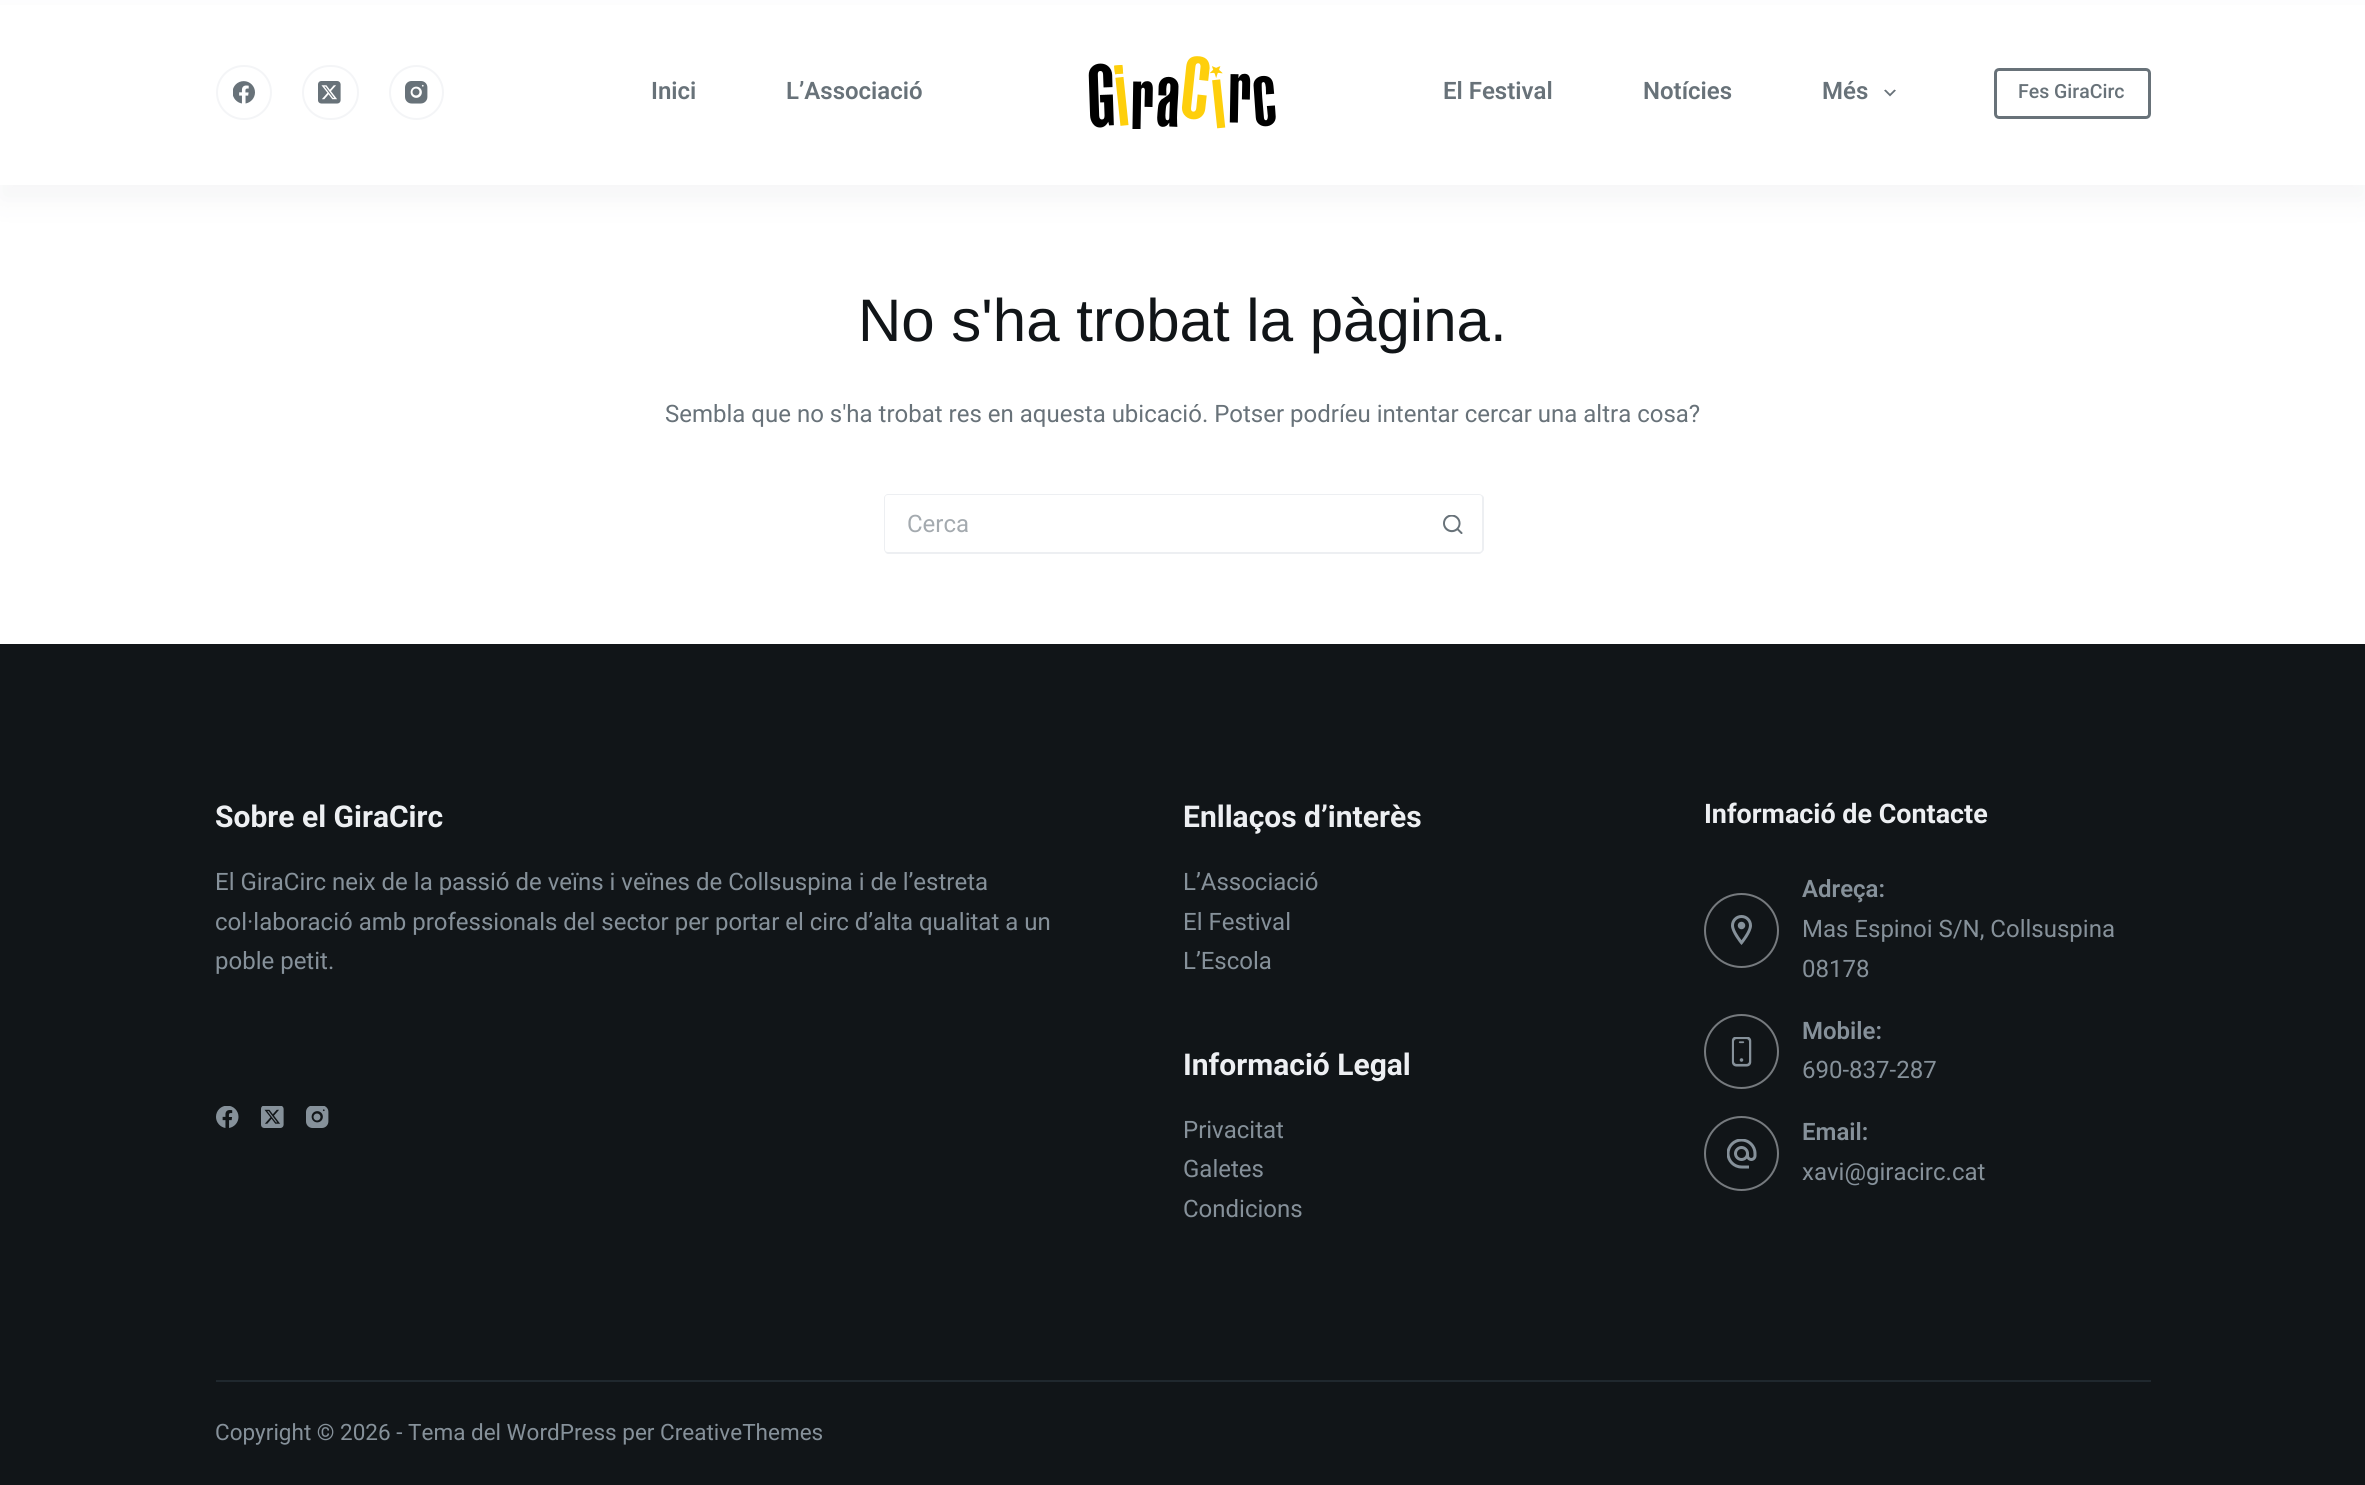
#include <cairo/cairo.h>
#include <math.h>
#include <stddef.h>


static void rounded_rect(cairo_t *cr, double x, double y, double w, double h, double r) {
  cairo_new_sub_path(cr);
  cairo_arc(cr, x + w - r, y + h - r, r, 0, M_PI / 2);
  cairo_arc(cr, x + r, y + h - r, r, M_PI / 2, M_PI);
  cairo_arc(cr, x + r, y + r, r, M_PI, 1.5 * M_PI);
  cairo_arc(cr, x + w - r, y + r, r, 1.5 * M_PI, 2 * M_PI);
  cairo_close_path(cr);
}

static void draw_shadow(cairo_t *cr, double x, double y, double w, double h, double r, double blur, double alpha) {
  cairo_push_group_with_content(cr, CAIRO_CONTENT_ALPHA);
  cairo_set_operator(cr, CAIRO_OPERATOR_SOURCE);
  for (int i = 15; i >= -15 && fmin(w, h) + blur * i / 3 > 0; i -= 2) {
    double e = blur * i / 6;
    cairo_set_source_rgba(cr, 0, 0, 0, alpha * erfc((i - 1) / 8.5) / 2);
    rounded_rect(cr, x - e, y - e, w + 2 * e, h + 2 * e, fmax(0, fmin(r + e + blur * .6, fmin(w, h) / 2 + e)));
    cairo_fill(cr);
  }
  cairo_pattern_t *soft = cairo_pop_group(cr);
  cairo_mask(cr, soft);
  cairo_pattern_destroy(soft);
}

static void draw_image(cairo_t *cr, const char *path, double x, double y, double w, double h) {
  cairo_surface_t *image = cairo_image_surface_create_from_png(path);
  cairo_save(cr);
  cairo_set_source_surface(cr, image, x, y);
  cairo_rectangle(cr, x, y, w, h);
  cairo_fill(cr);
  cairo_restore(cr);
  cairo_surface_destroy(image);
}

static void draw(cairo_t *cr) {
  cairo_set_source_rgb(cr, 1, 1, 1);
  cairo_paint(cr);
  cairo_set_source_rgb(cr, 43 / 255.0, 61 / 255.0, 79 / 255.0);
  draw_shadow(cr, 0, 15, 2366, 185, 0, 15, 0.05);
  cairo_set_source_rgb(cr, 1, 1, 1);
  cairo_rectangle(cr, 0, 5, 2365, 180);
  cairo_fill(cr);
  rounded_rect(cr, 217, 66, 54, 53, 26.5);
  cairo_set_source_rgb(cr, 244 / 255.0, 245 / 255.0, 247 / 255.0);
  cairo_stroke(cr);
  draw_image(cr, "images/1.png", 233, 81, 22, 23);
  rounded_rect(cr, 303, 66, 55, 53, 26.5);
  cairo_stroke(cr);
  draw_image(cr, "images/2.png", 318, 81, 23, 23);
  cairo_arc(cr, 416.5, 92.5, 26.5, 0, 2 * M_PI);
  cairo_stroke(cr);
  draw_image(cr, "images/3.png", 405, 81, 23, 23);
  draw_image(cr, "images/4.png", 1088, 56, 188, 73);
  draw_image(cr, "images/5.png", 1884, 89, 12, 8);
  rounded_rect(cr, 1995.5, 69.5, 154, 48, 3.5);
  cairo_set_source_rgb(cr, 104 / 255.0, 114 / 255.0, 121 / 255.0);
  cairo_set_line_width(cr, 3);
  cairo_stroke(cr);
  cairo_set_source_rgb(cr, 237 / 255.0, 239 / 255.0, 242 / 255.0);
  cairo_set_fill_rule(cr, CAIRO_FILL_RULE_EVEN_ODD);
  cairo_new_path(cr);
  cairo_move_to(cr, 888, 494);
  cairo_line_to(cr, 1424, 494);
  cairo_line_to(cr, 1424, 554);
  cairo_line_to(cr, 888, 554);
  cairo_curve_to(cr, 886, 554, 884, 551, 884, 549);
  cairo_line_to(cr, 884, 498);
  cairo_curve_to(cr, 884, 496, 886, 494, 888, 494);
  cairo_close_path(cr);
  cairo_move_to(cr, 888, 495);
  cairo_line_to(cr, 1424, 495);
  cairo_line_to(cr, 1424, 552);
  cairo_line_to(cr, 888, 552);
  cairo_curve_to(cr, 886, 552, 885, 551, 885, 549);
  cairo_line_to(cr, 885, 498);
  cairo_curve_to(cr, 885, 496, 886, 495, 888, 495);
  cairo_close_path(cr);
  cairo_fill(cr);
  cairo_new_path(cr);
  cairo_move_to(cr, 1424, 494);
  cairo_line_to(cr, 1479, 494);
  cairo_curve_to(cr, 1481, 494, 1484, 496, 1484, 498);
  cairo_line_to(cr, 1484, 549);
  cairo_curve_to(cr, 1484, 551, 1481, 554, 1479, 554);
  cairo_line_to(cr, 1424, 554);
  cairo_close_path(cr);
  cairo_move_to(cr, 1424, 495);
  cairo_line_to(cr, 1479, 495);
  cairo_curve_to(cr, 1481, 495, 1482, 496, 1482, 498);
  cairo_line_to(cr, 1482, 549);
  cairo_curve_to(cr, 1482, 551, 1481, 552, 1479, 552);
  cairo_line_to(cr, 1424, 552);
  cairo_close_path(cr);
  cairo_fill(cr);
  draw_image(cr, "images/6.png", 1443, 515, 20, 19);
  cairo_set_source_rgb(cr, 17 / 255.0, 21 / 255.0, 24 / 255.0);
  cairo_rectangle(cr, 0, 644, 2365, 841);
  cairo_fill(cr);
  draw_image(cr, "images/7.png", 216, 1106, 23, 22);
  draw_image(cr, "images/8.png", 261, 1106, 23, 22);
  draw_image(cr, "images/9.png", 306, 1106, 23, 22);
  cairo_arc(cr, 1741.5, 930.5, 36.5, 0, 2 * M_PI);
  cairo_set_source_rgb(cr, 118 / 255.0, 122 / 255.0, 126 / 255.0);
  cairo_set_line_width(cr, 2);
  cairo_stroke(cr);
  draw_image(cr, "images/10.png", 1731, 915, 21, 30);
  cairo_arc(cr, 1741.5, 1051.5, 36.5, 0, 2 * M_PI);
  cairo_stroke(cr);
  draw_image(cr, "images/11.png", 1731, 1037, 21, 30);
  cairo_arc(cr, 1741.5, 1153.5, 36.5, 0, 2 * M_PI);
  cairo_stroke(cr);
  draw_image(cr, "images/12.png", 1727, 1139, 30, 30);
  cairo_set_source_rgb(cr, 32 / 255.0, 40 / 255.0, 46 / 255.0);
  cairo_rectangle(cr, 216, 1380, 1935, 2);
  cairo_fill(cr);
  cairo_select_font_face(cr, "Roboto SemiBold", CAIRO_FONT_SLANT_NORMAL, CAIRO_FONT_WEIGHT_NORMAL);
  cairo_set_font_size(cr, 24);
  cairo_set_source_rgb(cr, 104 / 255.0, 114 / 255.0, 121 / 255.0);
  cairo_move_to(cr, 651, 99);
  cairo_show_text(cr, "Inici");
  cairo_move_to(cr, 786, 99);
  cairo_show_text(cr, "L’Associació");
  cairo_move_to(cr, 1443, 99);
  cairo_show_text(cr, "El Festival");
  cairo_move_to(cr, 1643, 99);
  cairo_show_text(cr, "Notícies");
  cairo_move_to(cr, 1822, 99);
  cairo_show_text(cr, "Més");
  cairo_select_font_face(cr, "Roboto Medium", CAIRO_FONT_SLANT_NORMAL, CAIRO_FONT_WEIGHT_NORMAL);
  cairo_set_font_size(cr, 19.5);
  cairo_move_to(cr, 2018, 98);
  cairo_show_text(cr, "Fes GiraCirc");
  cairo_select_font_face(cr, "Liberation Sans", CAIRO_FONT_SLANT_NORMAL, CAIRO_FONT_WEIGHT_NORMAL);
  cairo_set_font_size(cr, 60);
  cairo_set_source_rgb(cr, 17 / 255.0, 21 / 255.0, 24 / 255.0);
  cairo_move_to(cr, 858, 341);
  cairo_show_text(cr, "No s'ha trobat la pàgina.");
  cairo_select_font_face(cr, "Roboto", CAIRO_FONT_SLANT_NORMAL, CAIRO_FONT_WEIGHT_NORMAL);
  cairo_set_font_size(cr, 24);
  cairo_set_source_rgb(cr, 104 / 255.0, 114 / 255.0, 121 / 255.0);
  cairo_move_to(cr, 665, 422);
  cairo_show_text(cr, "Sembla que no s'ha trobat res en aquesta ubicació. Potser podríeu intentar cercar una altra cosa?");
  cairo_set_source_rgb(cr, 164 / 255.0, 170 / 255.0, 175 / 255.0);
  cairo_move_to(cr, 907, 532);
  cairo_show_text(cr, "Cerca");
  cairo_select_font_face(cr, "Roboto", CAIRO_FONT_SLANT_NORMAL, CAIRO_FONT_WEIGHT_BOLD);
  cairo_set_font_size(cr, 30);
  cairo_set_source_rgb(cr, 237 / 255.0, 239 / 255.0, 242 / 255.0);
  cairo_move_to(cr, 215, 827);
  cairo_show_text(cr, "Sobre el GiraCirc");
  cairo_select_font_face(cr, "Roboto", CAIRO_FONT_SLANT_NORMAL, CAIRO_FONT_WEIGHT_NORMAL);
  cairo_set_font_size(cr, 24);
  cairo_set_source_rgb(cr, 134 / 255.0, 145 / 255.0, 154 / 255.0);
  cairo_move_to(cr, 215, 890);
  cairo_show_text(cr, "El GiraCirc neix de la passió de veïns i veïnes de Collsuspina i de l’estreta");
  cairo_move_to(cr, 215, 930);
  cairo_show_text(cr, "col·laboració amb professionals del sector per portar el circ d’alta qualitat a un");
  cairo_move_to(cr, 215, 969);
  cairo_show_text(cr, "poble petit.");
  cairo_select_font_face(cr, "Roboto", CAIRO_FONT_SLANT_NORMAL, CAIRO_FONT_WEIGHT_BOLD);
  cairo_set_font_size(cr, 30);
  cairo_set_source_rgb(cr, 237 / 255.0, 239 / 255.0, 242 / 255.0);
  cairo_move_to(cr, 1183, 827);
  cairo_show_text(cr, "Enllaços d’interès");
  cairo_select_font_face(cr, "Roboto", CAIRO_FONT_SLANT_NORMAL, CAIRO_FONT_WEIGHT_NORMAL);
  cairo_set_font_size(cr, 24);
  cairo_set_source_rgb(cr, 134 / 255.0, 145 / 255.0, 154 / 255.0);
  cairo_move_to(cr, 1183, 890);
  cairo_show_text(cr, "L’Associació");
  cairo_move_to(cr, 1183, 930);
  cairo_show_text(cr, "El Festival");
  cairo_move_to(cr, 1183, 969);
  cairo_show_text(cr, "L’Escola");
  cairo_select_font_face(cr, "Roboto", CAIRO_FONT_SLANT_NORMAL, CAIRO_FONT_WEIGHT_BOLD);
  cairo_set_font_size(cr, 30);
  cairo_set_source_rgb(cr, 237 / 255.0, 239 / 255.0, 242 / 255.0);
  cairo_move_to(cr, 1183, 1075);
  cairo_show_text(cr, "Informació Legal");
  cairo_select_font_face(cr, "Roboto", CAIRO_FONT_SLANT_NORMAL, CAIRO_FONT_WEIGHT_NORMAL);
  cairo_set_font_size(cr, 24);
  cairo_set_source_rgb(cr, 134 / 255.0, 145 / 255.0, 154 / 255.0);
  cairo_move_to(cr, 1183, 1138);
  cairo_show_text(cr, "Privacitat");
  cairo_move_to(cr, 1183, 1177);
  cairo_show_text(cr, "Galetes");
  cairo_move_to(cr, 1183, 1217);
  cairo_show_text(cr, "Condicions");
  cairo_select_font_face(cr, "Roboto", CAIRO_FONT_SLANT_NORMAL, CAIRO_FONT_WEIGHT_BOLD);
  cairo_set_font_size(cr, 26.9);
  cairo_set_source_rgb(cr, 237 / 255.0, 239 / 255.0, 242 / 255.0);
  cairo_move_to(cr, 1704, 823);
  cairo_show_text(cr, "Informació de Contacte");
  cairo_select_font_face(cr, "Roboto SemiBold", CAIRO_FONT_SLANT_NORMAL, CAIRO_FONT_WEIGHT_NORMAL);
  cairo_set_font_size(cr, 24);
  cairo_set_source_rgb(cr, 134 / 255.0, 145 / 255.0, 154 / 255.0);
  cairo_move_to(cr, 1802, 897);
  cairo_show_text(cr, "Adreça:");
  cairo_select_font_face(cr, "Roboto", CAIRO_FONT_SLANT_NORMAL, CAIRO_FONT_WEIGHT_NORMAL);
  cairo_move_to(cr, 1802, 937);
  cairo_show_text(cr, "Mas Espinoi S/N, Collsuspina");
  cairo_move_to(cr, 1802, 977);
  cairo_show_text(cr, "08178");
  cairo_select_font_face(cr, "Roboto SemiBold", CAIRO_FONT_SLANT_NORMAL, CAIRO_FONT_WEIGHT_NORMAL);
  cairo_move_to(cr, 1802, 1039);
  cairo_show_text(cr, "Mobile:");
  cairo_select_font_face(cr, "Roboto", CAIRO_FONT_SLANT_NORMAL, CAIRO_FONT_WEIGHT_NORMAL);
  cairo_move_to(cr, 1802, 1078);
  cairo_show_text(cr, "690-837-287");
  cairo_select_font_face(cr, "Roboto SemiBold", CAIRO_FONT_SLANT_NORMAL, CAIRO_FONT_WEIGHT_NORMAL);
  cairo_move_to(cr, 1802, 1140);
  cairo_show_text(cr, "Email:");
  cairo_select_font_face(cr, "Roboto", CAIRO_FONT_SLANT_NORMAL, CAIRO_FONT_WEIGHT_NORMAL);
  cairo_move_to(cr, 1802, 1180);
  cairo_show_text(cr, "xavi@giracirc.cat");
  cairo_set_font_size(cr, 22.5);
  cairo_move_to(cr, 215, 1440);
  cairo_show_text(cr, "Copyright © 2026 - Tema del WordPress per CreativeThemes");
}

int main(void) {
  cairo_surface_t *surface = cairo_image_surface_create(CAIRO_FORMAT_RGB24, 2365, 1485);
  cairo_t *cr = cairo_create(surface);
  cairo_font_options_t *options = cairo_font_options_create();
  cairo_font_options_set_hint_metrics(options, CAIRO_HINT_METRICS_OFF);
  cairo_font_options_set_hint_style(options, CAIRO_HINT_STYLE_NONE);
  cairo_set_font_options(cr, options);
  cairo_set_miter_limit(cr, 4);
  draw(cr);
  cairo_surface_write_to_png(surface, "out.png");
  cairo_font_options_destroy(options);
  cairo_destroy(cr);
  cairo_surface_destroy(surface);
  return 0;
}
